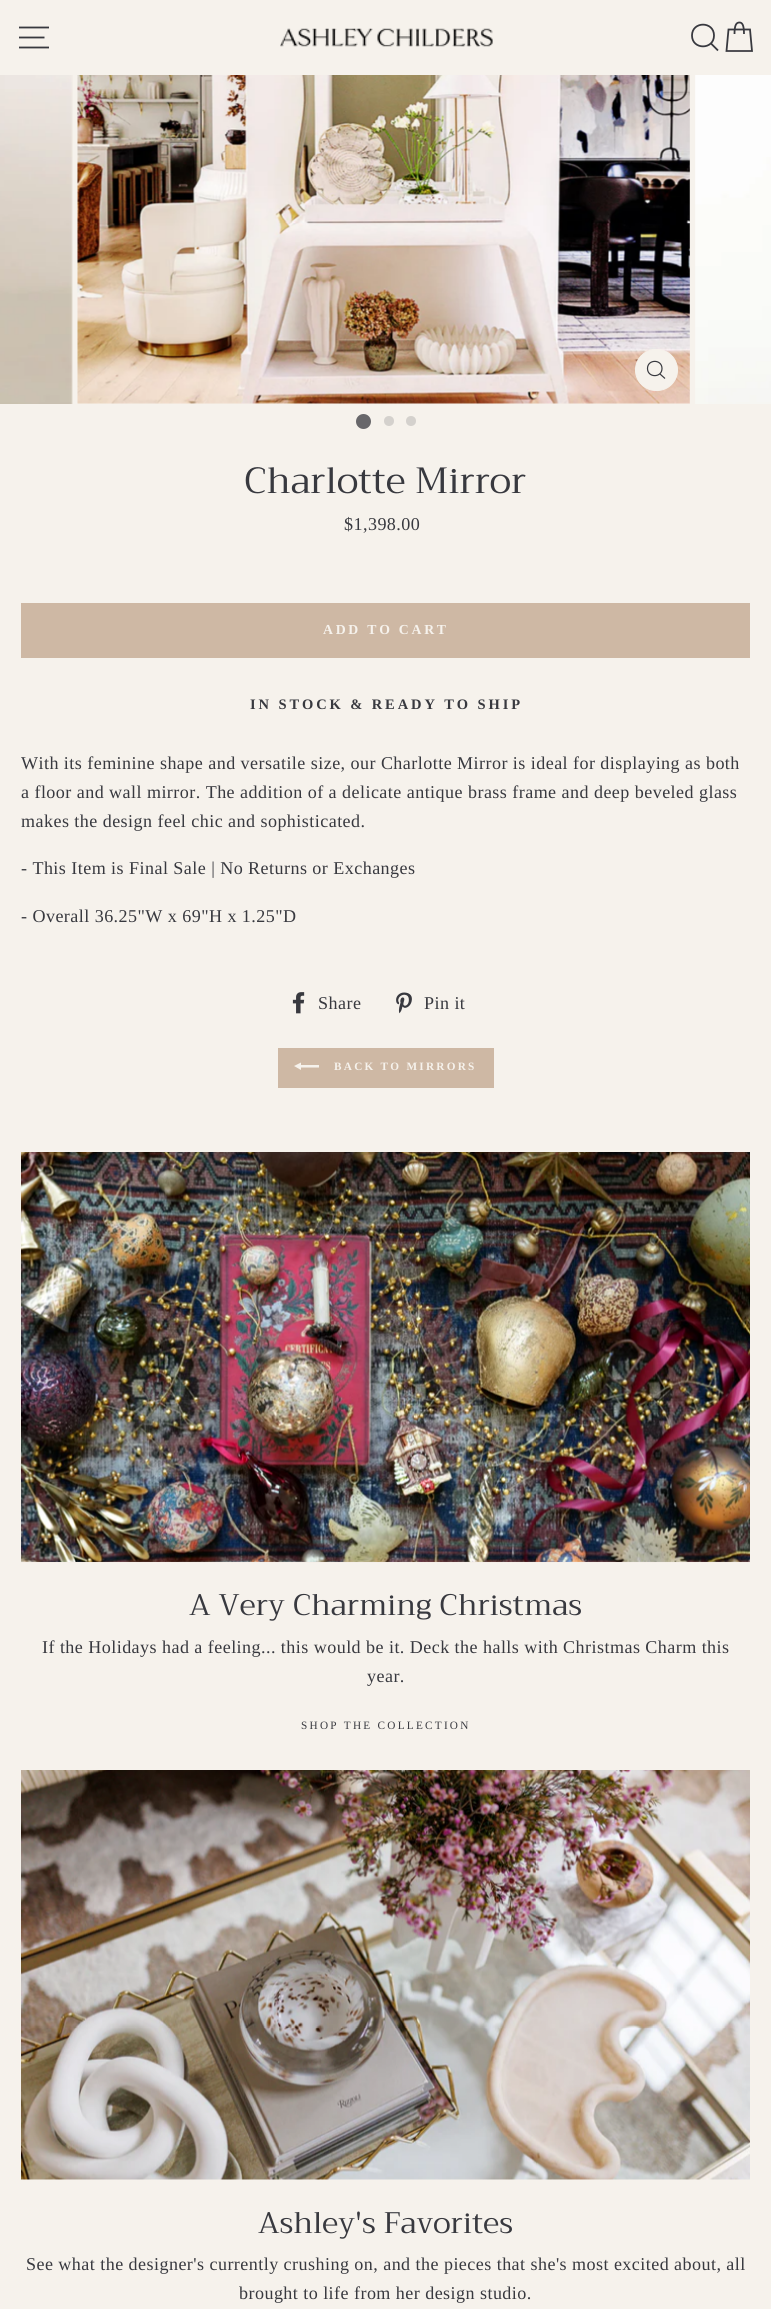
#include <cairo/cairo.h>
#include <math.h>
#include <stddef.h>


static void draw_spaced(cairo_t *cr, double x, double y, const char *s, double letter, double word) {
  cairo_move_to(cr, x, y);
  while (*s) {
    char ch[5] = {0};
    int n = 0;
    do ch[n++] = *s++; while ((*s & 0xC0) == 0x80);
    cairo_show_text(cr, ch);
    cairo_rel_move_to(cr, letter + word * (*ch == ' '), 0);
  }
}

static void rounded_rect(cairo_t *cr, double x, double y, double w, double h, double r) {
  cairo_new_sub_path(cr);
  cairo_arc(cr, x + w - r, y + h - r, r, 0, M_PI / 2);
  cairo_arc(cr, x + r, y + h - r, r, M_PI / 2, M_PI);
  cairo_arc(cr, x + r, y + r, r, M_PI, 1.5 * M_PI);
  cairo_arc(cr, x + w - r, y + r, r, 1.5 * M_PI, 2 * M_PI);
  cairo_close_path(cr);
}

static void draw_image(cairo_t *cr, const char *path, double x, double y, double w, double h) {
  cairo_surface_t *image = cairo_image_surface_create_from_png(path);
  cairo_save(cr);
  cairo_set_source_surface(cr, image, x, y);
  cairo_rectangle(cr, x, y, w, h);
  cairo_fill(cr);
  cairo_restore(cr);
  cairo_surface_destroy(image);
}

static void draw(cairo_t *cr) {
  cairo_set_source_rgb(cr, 246 / 255.0, 242 / 255.0, 236 / 255.0);
  cairo_paint(cr);
  cairo_new_path(cr);
  cairo_move_to(cr, 19, 27.5);
  cairo_line_to(cr, 49, 27.5);
  cairo_move_to(cr, 19, 37.5);
  cairo_line_to(cr, 44.5, 37.5);
  cairo_move_to(cr, 19, 47.5);
  cairo_line_to(cr, 49, 47.5);
  cairo_set_source_rgb(cr, 56 / 255.0, 57 / 255.0, 63 / 255.0);
  cairo_set_line_width(cr, 1.8);
  cairo_stroke(cr);
  draw_image(cr, "images/1.png", 280, 28, 213, 19);
  cairo_new_path(cr);
  cairo_move_to(cr, 714, 35.5);
  cairo_curve_to(cr, 714, 50, 692, 50, 692, 35.5);
  cairo_curve_to(cr, 692, 21, 714, 21, 714, 35.5);
  cairo_close_path(cr);
  cairo_move_to(cr, 718, 50.5);
  cairo_line_to(cr, 711, 43.5);
  cairo_move_to(cr, 734.5, 34);
  cairo_curve_to(cr, 734.5, 24.5, 736.5, 22.5, 739.5, 22.5);
  cairo_curve_to(cr, 742, 22.5, 744, 24.5, 744, 34);
  cairo_move_to(cr, 728.5, 29.5);
  cairo_line_to(cr, 750, 29.5);
  cairo_line_to(cr, 752, 51);
  cairo_line_to(cr, 726.5, 51);
  cairo_close_path(cr);
  cairo_stroke(cr);
  cairo_set_source_rgb(cr, 245 / 255.0, 239 / 255.0, 233 / 255.0);
  cairo_rectangle(cr, 0, 75, 73, 329);
  cairo_fill(cr);
  draw_image(cr, "images/2.png", 0, 75, 73, 329);
  cairo_rectangle(cr, 78, 75, 612, 329);
  cairo_fill(cr);
  draw_image(cr, "images/3.png", 77, 75, 613, 329);
  cairo_set_source_rgb(cr, 246 / 255.0, 242 / 255.0, 236 / 255.0);
  rounded_rect(cr, 635.5, 349.5, 42, 41, 20.5);
  cairo_fill_preserve(cr);
  cairo_set_line_width(cr, 1);
  cairo_stroke(cr);
  cairo_new_path(cr);
  cairo_move_to(cr, 662, 368.5);
  cairo_curve_to(cr, 662, 378, 647.5, 378, 647.5, 368.5);
  cairo_curve_to(cr, 647.5, 359, 662, 359, 662, 368.5);
  cairo_close_path(cr);
  cairo_move_to(cr, 665, 378.5);
  cairo_line_to(cr, 660, 374);
  cairo_set_source_rgb(cr, 56 / 255.0, 57 / 255.0, 63 / 255.0);
  cairo_set_line_width(cr, 1.2);
  cairo_stroke(cr);
  draw_image(cr, "images/4.png", 695, 75, 76, 329);
  cairo_set_source_rgb(cr, 104 / 255.0, 103 / 255.0, 106 / 255.0);
  cairo_arc(cr, 363.5, 421.5, 7.5, 0, 2 * M_PI);
  cairo_fill(cr);
  cairo_set_source_rgb(cr, 212 / 255.0, 209 / 255.0, 205 / 255.0);
  cairo_arc(cr, 389, 421, 5, 0, 2 * M_PI);
  cairo_fill(cr);
  cairo_arc(cr, 411, 421, 5, 0, 2 * M_PI);
  cairo_fill(cr);
  cairo_set_source_rgb(cr, 206 / 255.0, 184 / 255.0, 164 / 255.0);
  cairo_rectangle(cr, 21, 603, 729, 55);
  cairo_fill(cr);
  draw_image(cr, "images/5.png", 292, 992, 13, 22);
  draw_image(cr, "images/6.png", 396, 992, 16, 22);
  cairo_rectangle(cr, 278, 1048, 216, 40);
  cairo_fill(cr);
  cairo_set_source_rgb(cr, 246 / 255.0, 242 / 255.0, 236 / 255.0);
  cairo_new_path(cr);
  cairo_move_to(cr, 319, 1065);
  cairo_line_to(cr, 319, 1067.5);
  cairo_line_to(cr, 301, 1067.5);
  cairo_line_to(cr, 301, 1070);
  cairo_line_to(cr, 294, 1066);
  cairo_line_to(cr, 301, 1062.5);
  cairo_line_to(cr, 301, 1065);
  cairo_close_path(cr);
  cairo_fill(cr);
  cairo_set_source_rgb(cr, 245 / 255.0, 239 / 255.0, 233 / 255.0);
  cairo_rectangle(cr, 21, 1561, 729, 2);
  cairo_fill(cr);
  draw_image(cr, "images/7.png", 21, 1152, 729, 410);
  cairo_rectangle(cr, 21, 2179, 729, 1);
  cairo_fill(cr);
  draw_image(cr, "images/8.png", 21, 1770, 729, 410);
  cairo_select_font_face(cr, "Trirong", CAIRO_FONT_SLANT_NORMAL, CAIRO_FONT_WEIGHT_NORMAL);
  cairo_set_font_size(cr, 36.5);
  cairo_set_source_rgb(cr, 56 / 255.0, 57 / 255.0, 63 / 255.0);
  cairo_move_to(cr, 244, 493);
  cairo_show_text(cr, "Charlotte Mirror");
  cairo_select_font_face(cr, "Liberation Serif", CAIRO_FONT_SLANT_NORMAL, CAIRO_FONT_WEIGHT_NORMAL);
  cairo_set_font_size(cr, 18.05);
  draw_spaced(cr, 344, 530, "$1,398.00", 0.45, 0);
  cairo_select_font_face(cr, "Liberation Serif", CAIRO_FONT_SLANT_NORMAL, CAIRO_FONT_WEIGHT_BOLD);
  cairo_set_font_size(cr, 13.75);
  cairo_set_source_rgb(cr, 246 / 255.0, 242 / 255.0, 236 / 255.0);
  draw_spaced(cr, 323, 634, "ADD TO CART", 2.75, 0);
  cairo_set_font_size(cr, 14.5);
  cairo_set_source_rgb(cr, 56 / 255.0, 57 / 255.0, 63 / 255.0);
  draw_spaced(cr, 250, 709, "IN STOCK & READY TO SHIP", 2.9, 0);
  cairo_select_font_face(cr, "Liberation Serif", CAIRO_FONT_SLANT_NORMAL, CAIRO_FONT_WEIGHT_NORMAL);
  cairo_set_font_size(cr, 18.05);
  draw_spaced(cr, 21, 769, "With its feminine shape and versatile size, our Charlotte Mirror is ideal for displaying as both", 0.45, 0);
  draw_spaced(cr, 21, 798, "a floor and wall mirror. The addition of a delicate antique brass frame and deep beveled glass", 0.45, 0);
  draw_spaced(cr, 21, 827, "makes the design feel chic and sophisticated.", 0.45, 0);
  draw_spaced(cr, 21, 874, "- This Item is Final Sale | No Returns or Exchanges", 0.45, 0);
  draw_spaced(cr, 21, 922, "- Overall 36.25\"W x 69\"H x 1.25\"D", 0.45, 0);
  draw_spaced(cr, 318, 1009, "Share", 0.45, 0);
  draw_spaced(cr, 424, 1009, "Pin it", 0.45, 0);
  cairo_select_font_face(cr, "Liberation Serif", CAIRO_FONT_SLANT_NORMAL, CAIRO_FONT_WEIGHT_BOLD);
  cairo_set_font_size(cr, 11.25);
  cairo_set_source_rgb(cr, 246 / 255.0, 242 / 255.0, 236 / 255.0);
  draw_spaced(cr, 334, 1070, "BACK TO MIRRORS", 2.25, 0);
  cairo_select_font_face(cr, "Trirong", CAIRO_FONT_SLANT_NORMAL, CAIRO_FONT_WEIGHT_NORMAL);
  cairo_set_font_size(cr, 29.75);
  cairo_set_source_rgb(cr, 56 / 255.0, 57 / 255.0, 63 / 255.0);
  cairo_move_to(cr, 189, 1615);
  cairo_show_text(cr, "A Very Charming Christmas");
  cairo_select_font_face(cr, "Liberation Serif", CAIRO_FONT_SLANT_NORMAL, CAIRO_FONT_WEIGHT_NORMAL);
  cairo_set_font_size(cr, 18.05);
  draw_spaced(cr, 42, 1653, "If the Holidays had a feeling... this would be it. Deck the halls with Christmas Charm this", 0.45, 0);
  draw_spaced(cr, 367, 1682, "year.", 0.45, 0);
  cairo_set_font_size(cr, 11.25);
  draw_spaced(cr, 301, 1729, "SHOP THE COLLECTION", 2.25, 0);
  cairo_select_font_face(cr, "Trirong", CAIRO_FONT_SLANT_NORMAL, CAIRO_FONT_WEIGHT_NORMAL);
  cairo_set_font_size(cr, 29.75);
  cairo_move_to(cr, 258, 2233);
  cairo_show_text(cr, "Ashley's Favorites");
  cairo_select_font_face(cr, "Liberation Serif", CAIRO_FONT_SLANT_NORMAL, CAIRO_FONT_WEIGHT_NORMAL);
  cairo_set_font_size(cr, 18.05);
  draw_spaced(cr, 26, 2270, "See what the designer's currently crushing on, and the pieces that she's most excited about, all", 0.45, 0);
  draw_spaced(cr, 239, 2299, "brought to life from her design studio.", 0.45, 0);
}

int main(void) {
  cairo_surface_t *surface = cairo_image_surface_create(CAIRO_FORMAT_RGB24, 771, 2309);
  cairo_t *cr = cairo_create(surface);
  cairo_font_options_t *options = cairo_font_options_create();
  cairo_font_options_set_hint_metrics(options, CAIRO_HINT_METRICS_OFF);
  cairo_font_options_set_hint_style(options, CAIRO_HINT_STYLE_NONE);
  cairo_set_font_options(cr, options);
  cairo_set_miter_limit(cr, 4);
  draw(cr);
  cairo_surface_write_to_png(surface, "out.png");
  cairo_font_options_destroy(options);
  cairo_destroy(cr);
  cairo_surface_destroy(surface);
  return 0;
}
